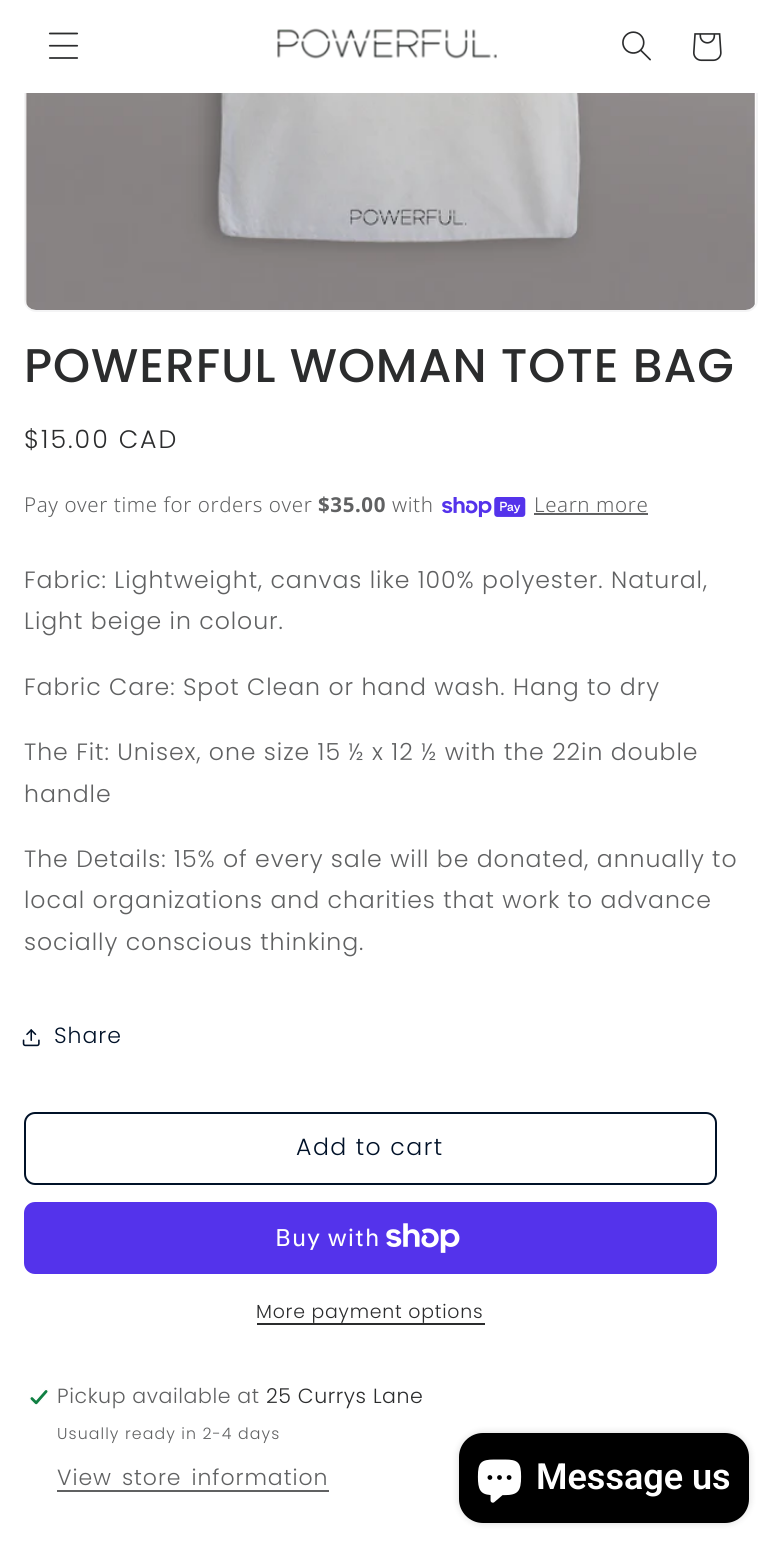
#include <cairo/cairo.h>
#include <math.h>
#include <stddef.h>


static void draw_spaced(cairo_t *cr, double x, double y, const char *s, double letter, double word) {
  cairo_move_to(cr, x, y);
  while (*s) {
    char ch[5] = {0};
    int n = 0;
    do ch[n++] = *s++; while ((*s & 0xC0) == 0x80);
    cairo_show_text(cr, ch);
    cairo_rel_move_to(cr, letter + word * (*ch == ' '), 0);
  }
}

static void rounded_rect(cairo_t *cr, double x, double y, double w, double h, double r) {
  cairo_new_sub_path(cr);
  cairo_arc(cr, x + w - r, y + h - r, r, 0, M_PI / 2);
  cairo_arc(cr, x + r, y + h - r, r, M_PI / 2, M_PI);
  cairo_arc(cr, x + r, y + r, r, M_PI, 1.5 * M_PI);
  cairo_arc(cr, x + w - r, y + r, r, 1.5 * M_PI, 2 * M_PI);
  cairo_close_path(cr);
}

static void draw_shadow(cairo_t *cr, double x, double y, double w, double h, double r, double blur, double alpha) {
  cairo_push_group_with_content(cr, CAIRO_CONTENT_ALPHA);
  cairo_set_operator(cr, CAIRO_OPERATOR_SOURCE);
  for (int i = 15; i >= -15 && fmin(w, h) + blur * i / 3 > 0; i -= 2) {
    double e = blur * i / 6;
    cairo_set_source_rgba(cr, 0, 0, 0, alpha * erfc((i - 1) / 8.5) / 2);
    rounded_rect(cr, x - e, y - e, w + 2 * e, h + 2 * e, fmax(0, fmin(r + e + blur * .6, fmin(w, h) / 2 + e)));
    cairo_fill(cr);
  }
  cairo_pattern_t *soft = cairo_pop_group(cr);
  cairo_mask(cr, soft);
  cairo_pattern_destroy(soft);
}

static void draw_image(cairo_t *cr, const char *path, double x, double y, double w, double h) {
  cairo_surface_t *image = cairo_image_surface_create_from_png(path);
  cairo_save(cr);
  cairo_set_source_surface(cr, image, x, y);
  cairo_rectangle(cr, x, y, w, h);
  cairo_fill(cr);
  cairo_restore(cr);
  cairo_surface_destroy(image);
}

static void draw(cairo_t *cr) {
  cairo_set_source_rgb(cr, 1, 1, 1);
  cairo_paint(cr);
  rounded_rect(cr, 25, -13, 732, 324, 11);
  cairo_set_source_rgb(cr, 244 / 255.0, 244 / 255.0, 245 / 255.0);
  cairo_stroke(cr);
  cairo_set_source_rgb(cr, 1, 1, 1);
  cairo_rectangle(cr, 24, 0, 734, 93);
  cairo_fill(cr);
  draw_image(cr, "images/1.png", 48, 32, 31, 27);
  draw_image(cr, "images/2.png", 277, 28, 220, 31);
  draw_image(cr, "images/3.png", 622, 31, 29, 30);
  draw_image(cr, "images/4.png", 693, 33, 29, 29);
  draw_image(cr, "images/5.png", 25, 93, 731, 217);
  draw_image(cr, "images/6.png", 442, 497, 84, 21);
  cairo_set_source_rgb(cr, 96 / 255.0, 97 / 255.0, 98 / 255.0);
  cairo_rectangle(cr, 534, 513, 114, 2);
  cairo_fill(cr);
  draw_image(cr, "images/7.png", 22, 1029, 18, 18);
  rounded_rect(cr, 25, 1113, 691, 71, 10);
  cairo_set_source_rgb(cr, 0, 17 / 255.0, 40 / 255.0);
  cairo_stroke(cr);
  cairo_set_source_rgb(cr, 84 / 255.0, 51 / 255.0, 235 / 255.0);
  rounded_rect(cr, 24, 1202, 693, 72, 11);
  cairo_fill(cr);
  draw_image(cr, "images/8.png", 386, 1223, 74, 30);
  cairo_set_source_rgb(cr, 43 / 255.0, 44 / 255.0, 45 / 255.0);
  cairo_rectangle(cr, 257, 1323, 228, 2);
  cairo_fill(cr);
  draw_image(cr, "images/9.png", 29, 1389, 20, 16);
  cairo_set_source_rgb(cr, 96 / 255.0, 97 / 255.0, 98 / 255.0);
  cairo_rectangle(cr, 57, 1490, 272, 2);
  cairo_fill(cr);
  cairo_set_source_rgb(cr, 0, 0, 0);
  draw_shadow(cr, 459, 1433, 290, 90, 24, 4, 0.15);
  cairo_set_source_rgb(cr, 0, 0, 0);
  rounded_rect(cr, 459, 1433, 290, 90, 24);
  cairo_fill(cr);
  draw_image(cr, "images/10.png", 477, 1459, 45, 44);
  cairo_select_font_face(cr, "Poppins Medium", CAIRO_FONT_SLANT_NORMAL, CAIRO_FONT_WEIGHT_NORMAL);
  cairo_set_font_size(cr, 47.25);
  cairo_set_source_rgb(cr, 43 / 255.0, 44 / 255.0, 45 / 255.0);
  draw_spaced(cr, 24, 382, "POWERFUL WOMAN TOTE BAG", 0.95, 0);
  cairo_select_font_face(cr, "Poppins Light", CAIRO_FONT_SLANT_NORMAL, CAIRO_FONT_WEIGHT_NORMAL);
  cairo_set_font_size(cr, 25.25);
  draw_spaced(cr, 24, 448, "$15.00 CAD", 2, 0);
  cairo_select_font_face(cr, "Noto Sans Light", CAIRO_FONT_SLANT_NORMAL, CAIRO_FONT_WEIGHT_NORMAL);
  cairo_set_font_size(cr, 20.5);
  cairo_set_source_rgb(cr, 96 / 255.0, 97 / 255.0, 98 / 255.0);
  draw_spaced(cr, 24, 512, "Pay over time for orders over", 0.6, 0);
  cairo_select_font_face(cr, "Noto Sans", CAIRO_FONT_SLANT_NORMAL, CAIRO_FONT_WEIGHT_BOLD);
  draw_spaced(cr, 318, 512, "$35.00", 0.6, 0);
  cairo_select_font_face(cr, "Noto Sans Light", CAIRO_FONT_SLANT_NORMAL, CAIRO_FONT_WEIGHT_NORMAL);
  draw_spaced(cr, 392, 512, "with", 0.6, 0);
  draw_spaced(cr, 534, 512, "Learn more", 0.6, 0);
  cairo_select_font_face(cr, "Poppins Light", CAIRO_FONT_SLANT_NORMAL, CAIRO_FONT_WEIGHT_NORMAL);
  cairo_set_font_size(cr, 23.6);
  draw_spaced(cr, 24, 588, "Fabric: Lightweight, canvas like 100% polyester. Natural,", 0.95, 0);
  draw_spaced(cr, 24, 629, "Light beige in colour.", 0.95, 0);
  draw_spaced(cr, 24, 695, "Fabric Care: Spot Clean or hand wash. Hang to dry", 0.95, 0);
  draw_spaced(cr, 24, 760, "The Fit: Unisex, one size 15 ½ x 12 ½ with the 22in double", 0.95, 0);
  draw_spaced(cr, 24, 802, "handle", 0.95, 0);
  draw_spaced(cr, 24, 867, "The Details: 15% of every sale will be donated, annually to", 0.95, 0);
  draw_spaced(cr, 24, 908, "local organizations and charities that work to advance", 0.95, 0);
  draw_spaced(cr, 24, 950, "socially conscious thinking.", 0.95, 0);
  cairo_set_font_size(cr, 22);
  cairo_set_source_rgb(cr, 0, 17 / 255.0, 40 / 255.0);
  draw_spaced(cr, 54, 1043, "Share", 0.95, 0);
  cairo_set_font_size(cr, 23.6);
  draw_spaced(cr, 296, 1155, "Add to cart", 1.5, 0);
  cairo_select_font_face(cr, "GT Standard", CAIRO_FONT_SLANT_NORMAL, CAIRO_FONT_WEIGHT_NORMAL);
  cairo_set_font_size(cr, 24);
  cairo_set_source_rgb(cr, 1, 1, 1);
  draw_spaced(cr, 275, 1246, "Buy with", 0.95, 0);
  cairo_select_font_face(cr, "Poppins Light", CAIRO_FONT_SLANT_NORMAL, CAIRO_FONT_WEIGHT_NORMAL);
  cairo_set_font_size(cr, 18.9);
  cairo_set_source_rgb(cr, 43 / 255.0, 44 / 255.0, 45 / 255.0);
  draw_spaced(cr, 256, 1318, "More payment options", 0.75, 0);
  cairo_set_font_size(cr, 20.5);
  cairo_set_source_rgb(cr, 96 / 255.0, 97 / 255.0, 98 / 255.0);
  draw_spaced(cr, 57, 1403, "Pickup available at", 0.6, 0);
  cairo_set_source_rgb(cr, 43 / 255.0, 44 / 255.0, 45 / 255.0);
  draw_spaced(cr, 266, 1403, "25 Currys Lane", 0.6, 0);
  cairo_set_font_size(cr, 15.75);
  cairo_set_source_rgb(cr, 96 / 255.0, 97 / 255.0, 98 / 255.0);
  draw_spaced(cr, 57, 1439, "Usually ready in 2-4 days", 1.1, 0);
  cairo_set_font_size(cr, 22);
  draw_spaced(cr, 57, 1485, "View store information", 0.95, 3);
  cairo_select_font_face(cr, "Roboto SemiBold", CAIRO_FONT_SLANT_NORMAL, CAIRO_FONT_WEIGHT_NORMAL);
  cairo_set_font_size(cr, 36);
  cairo_set_source_rgb(cr, 1, 1, 1);
  cairo_move_to(cr, 536, 1489);
  cairo_show_text(cr, "Message us");
}

int main(void) {
  cairo_surface_t *surface = cairo_image_surface_create(CAIRO_FORMAT_RGB24, 781, 1554);
  cairo_t *cr = cairo_create(surface);
  cairo_font_options_t *options = cairo_font_options_create();
  cairo_font_options_set_hint_metrics(options, CAIRO_HINT_METRICS_OFF);
  cairo_font_options_set_hint_style(options, CAIRO_HINT_STYLE_NONE);
  cairo_set_font_options(cr, options);
  cairo_set_miter_limit(cr, 4);
  draw(cr);
  cairo_surface_write_to_png(surface, "out.png");
  cairo_font_options_destroy(options);
  cairo_destroy(cr);
  cairo_surface_destroy(surface);
  return 0;
}
